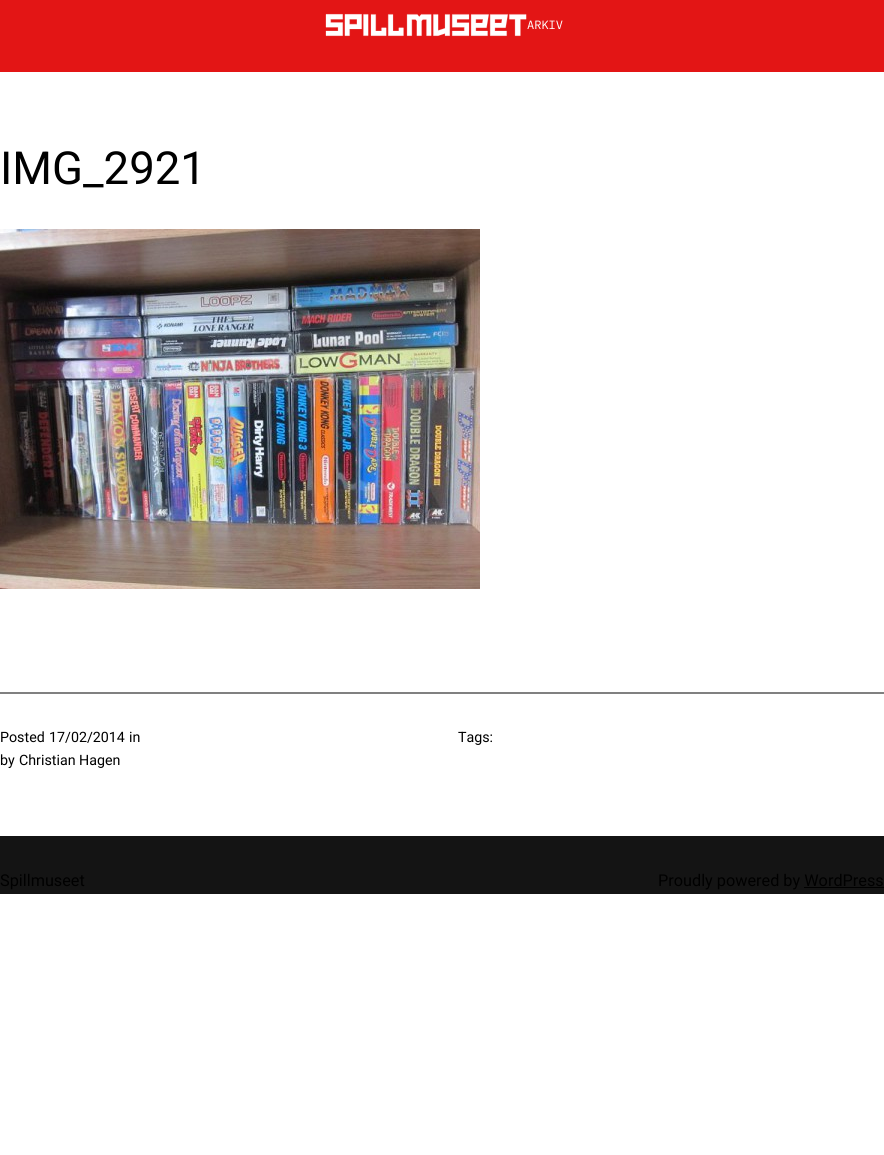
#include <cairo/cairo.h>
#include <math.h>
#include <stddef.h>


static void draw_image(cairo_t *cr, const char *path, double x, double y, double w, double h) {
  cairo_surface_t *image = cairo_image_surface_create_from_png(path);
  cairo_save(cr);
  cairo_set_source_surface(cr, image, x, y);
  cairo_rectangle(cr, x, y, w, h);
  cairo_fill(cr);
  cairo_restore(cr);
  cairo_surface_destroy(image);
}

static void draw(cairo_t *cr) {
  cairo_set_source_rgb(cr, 1, 1, 1);
  cairo_paint(cr);
  cairo_set_source_rgb(cr, 227 / 255.0, 21 / 255.0, 21 / 255.0);
  cairo_rectangle(cr, 0, 0, 884, 72);
  cairo_fill(cr);
  draw_image(cr, "images/1.png", 325, 13, 202, 24);
  draw_image(cr, "images/2.png", 0, 229, 480, 360);
  cairo_set_source_rgb(cr, 128 / 255.0, 128 / 255.0, 128 / 255.0);
  cairo_rectangle(cr, 0, 692, 884, 2);
  cairo_fill(cr);
  cairo_set_source_rgb(cr, 20 / 255.0, 20 / 255.0, 20 / 255.0);
  cairo_rectangle(cr, 0, 836, 884, 58);
  cairo_fill(cr);
  cairo_set_source_rgb(cr, 0, 0, 0);
  cairo_rectangle(cr, 804, 887, 80, 1);
  cairo_fill(cr);
  cairo_select_font_face(cr, "IBM Plex Mono", CAIRO_FONT_SLANT_NORMAL, CAIRO_FONT_WEIGHT_NORMAL);
  cairo_set_font_size(cr, 12);
  cairo_set_source_rgb(cr, 1, 1, 1);
  cairo_move_to(cr, 527, 29);
  cairo_show_text(cr, "ARKIV");
  cairo_select_font_face(cr, "Roboto", CAIRO_FONT_SLANT_NORMAL, CAIRO_FONT_WEIGHT_NORMAL);
  cairo_set_font_size(cr, 45.5);
  cairo_set_source_rgb(cr, 0, 0, 0);
  cairo_move_to(cr, 0, 184);
  cairo_show_text(cr, "IMG_2921");
  cairo_set_font_size(cr, 14.25);
  cairo_move_to(cr, 0, 742);
  cairo_show_text(cr, "Posted");
  cairo_move_to(cr, 49, 742);
  cairo_show_text(cr, "17/02/2014");
  cairo_move_to(cr, 129, 742);
  cairo_show_text(cr, "in");
  cairo_move_to(cr, 0, 765);
  cairo_show_text(cr, "by");
  cairo_move_to(cr, 19, 765);
  cairo_show_text(cr, "Christian Hagen");
  cairo_move_to(cr, 458, 742);
  cairo_show_text(cr, "Tags:");
  cairo_set_font_size(cr, 16.25);
  cairo_move_to(cr, 0, 886);
  cairo_show_text(cr, "Spillmuseet");
  cairo_move_to(cr, 658, 886);
  cairo_show_text(cr, "Proudly powered by WordPress");
}

int main(void) {
  cairo_surface_t *surface = cairo_image_surface_create(CAIRO_FORMAT_RGB24, 884, 1155);
  cairo_t *cr = cairo_create(surface);
  cairo_font_options_t *options = cairo_font_options_create();
  cairo_font_options_set_hint_metrics(options, CAIRO_HINT_METRICS_OFF);
  cairo_font_options_set_hint_style(options, CAIRO_HINT_STYLE_NONE);
  cairo_set_font_options(cr, options);
  cairo_set_miter_limit(cr, 4);
  draw(cr);
  cairo_surface_write_to_png(surface, "out.png");
  cairo_font_options_destroy(options);
  cairo_destroy(cr);
  cairo_surface_destroy(surface);
  return 0;
}
